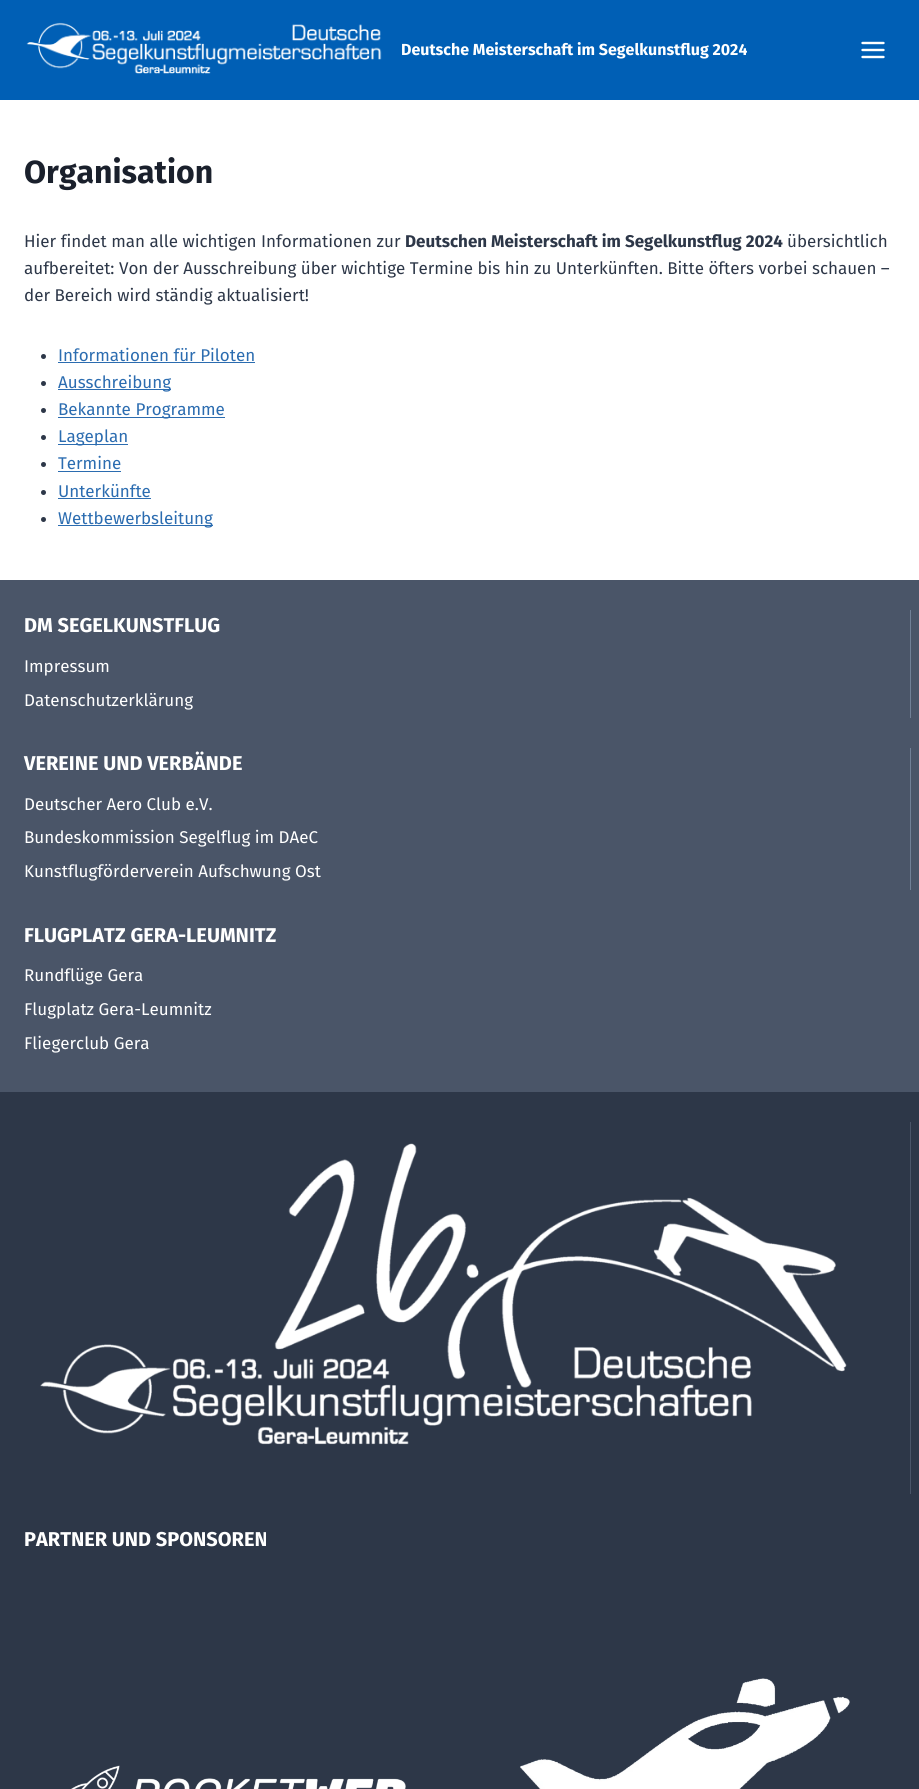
#include <cairo/cairo.h>
#include <math.h>
#include <stddef.h>


static void draw_image(cairo_t *cr, const char *path, double x, double y, double w, double h) {
  cairo_surface_t *image = cairo_image_surface_create_from_png(path);
  cairo_save(cr);
  cairo_set_source_surface(cr, image, x, y);
  cairo_rectangle(cr, x, y, w, h);
  cairo_fill(cr);
  cairo_restore(cr);
  cairo_surface_destroy(image);
}

static void draw(cairo_t *cr) {
  cairo_set_source_rgb(cr, 1, 1, 1);
  cairo_paint(cr);
  cairo_set_source_rgb(cr, 0, 95 / 255.0, 181 / 255.0);
  cairo_rectangle(cr, 0, 0, 919, 100);
  cairo_fill(cr);
  draw_image(cr, "images/1.png", 26, 22, 356, 52);
  draw_image(cr, "images/2.png", 861, 41, 24, 18);
  cairo_set_source_rgb(cr, 45 / 255.0, 55 / 255.0, 72 / 255.0);
  cairo_arc(cr, 43.5, 356.5, 2.5, 0, 2 * M_PI);
  cairo_fill(cr);
  cairo_set_source_rgb(cr, 43 / 255.0, 108 / 255.0, 176 / 255.0);
  cairo_rectangle(cr, 58, 362, 197, 1);
  cairo_fill(cr);
  cairo_set_source_rgb(cr, 45 / 255.0, 55 / 255.0, 72 / 255.0);
  cairo_arc(cr, 43.5, 383.5, 2.5, 0, 2 * M_PI);
  cairo_fill(cr);
  cairo_set_source_rgb(cr, 43 / 255.0, 108 / 255.0, 176 / 255.0);
  cairo_rectangle(cr, 58, 389, 113, 1);
  cairo_fill(cr);
  cairo_set_source_rgb(cr, 45 / 255.0, 55 / 255.0, 72 / 255.0);
  cairo_arc(cr, 43.5, 410.5, 2.5, 0, 2 * M_PI);
  cairo_fill(cr);
  cairo_set_source_rgb(cr, 43 / 255.0, 108 / 255.0, 176 / 255.0);
  cairo_rectangle(cr, 58, 417, 167, 1);
  cairo_fill(cr);
  cairo_set_source_rgb(cr, 45 / 255.0, 55 / 255.0, 72 / 255.0);
  cairo_arc(cr, 43.5, 437.5, 2.5, 0, 2 * M_PI);
  cairo_fill(cr);
  cairo_set_source_rgb(cr, 43 / 255.0, 108 / 255.0, 176 / 255.0);
  cairo_rectangle(cr, 58, 444, 70, 1);
  cairo_fill(cr);
  cairo_set_source_rgb(cr, 45 / 255.0, 55 / 255.0, 72 / 255.0);
  cairo_arc(cr, 43.5, 464.5, 2.5, 0, 2 * M_PI);
  cairo_fill(cr);
  cairo_set_source_rgb(cr, 43 / 255.0, 108 / 255.0, 176 / 255.0);
  cairo_rectangle(cr, 58, 471, 63, 1);
  cairo_fill(cr);
  cairo_set_source_rgb(cr, 45 / 255.0, 55 / 255.0, 72 / 255.0);
  cairo_arc(cr, 43.5, 492.5, 2.5, 0, 2 * M_PI);
  cairo_fill(cr);
  cairo_set_source_rgb(cr, 43 / 255.0, 108 / 255.0, 176 / 255.0);
  cairo_rectangle(cr, 58, 498, 93, 1);
  cairo_fill(cr);
  cairo_set_source_rgb(cr, 45 / 255.0, 55 / 255.0, 72 / 255.0);
  cairo_arc(cr, 43.5, 519.5, 2.5, 0, 2 * M_PI);
  cairo_fill(cr);
  cairo_set_source_rgb(cr, 43 / 255.0, 108 / 255.0, 176 / 255.0);
  cairo_rectangle(cr, 58, 525, 155, 1);
  cairo_fill(cr);
  cairo_set_source_rgb(cr, 45 / 255.0, 55 / 255.0, 72 / 255.0);
  cairo_rectangle(cr, 0, 1092, 919, 697);
  cairo_fill(cr);
  cairo_set_source_rgb(cr, 74 / 255.0, 85 / 255.0, 104 / 255.0);
  cairo_rectangle(cr, 0, 580, 919, 512);
  cairo_fill(cr);
  cairo_set_source_rgb(cr, 113 / 255.0, 128 / 255.0, 150 / 255.0);
  cairo_rectangle(cr, 910, 610, 1, 108);
  cairo_fill(cr);
  cairo_rectangle(cr, 910, 748, 1, 142);
  cairo_fill(cr);
  draw_image(cr, "images/3.png", 40, 1143, 807, 302);
  cairo_set_source_rgb(cr, 74 / 255.0, 85 / 255.0, 104 / 255.0);
  cairo_rectangle(cr, 910, 1122, 1, 372);
  cairo_fill(cr);
  draw_image(cr, "images/4.png", 71, 1765, 335, 24);
  draw_image(cr, "images/5.png", 520, 1678, 330, 111);
  cairo_select_font_face(cr, "Fira Sans", CAIRO_FONT_SLANT_NORMAL, CAIRO_FONT_WEIGHT_BOLD);
  cairo_set_font_size(cr, 16);
  cairo_set_source_rgb(cr, 1, 1, 1);
  cairo_move_to(cr, 401, 55);
  cairo_show_text(cr, "Deutsche Meisterschaft im Segelkunstflug 2024");
  cairo_set_font_size(cr, 32);
  cairo_set_source_rgb(cr, 26 / 255.0, 32 / 255.0, 44 / 255.0);
  cairo_move_to(cr, 24, 183);
  cairo_show_text(cr, "Organisation");
  cairo_select_font_face(cr, "Fira Sans", CAIRO_FONT_SLANT_NORMAL, CAIRO_FONT_WEIGHT_NORMAL);
  cairo_set_font_size(cr, 17);
  cairo_set_source_rgb(cr, 45 / 255.0, 55 / 255.0, 72 / 255.0);
  cairo_move_to(cr, 24, 247);
  cairo_show_text(cr, "Hier findet man alle wichtigen Informationen zur");
  cairo_select_font_face(cr, "Fira Sans", CAIRO_FONT_SLANT_NORMAL, CAIRO_FONT_WEIGHT_BOLD);
  cairo_move_to(cr, 405, 247);
  cairo_show_text(cr, "Deutschen Meisterschaft im Segelkunstflug 2024");
  cairo_select_font_face(cr, "Fira Sans", CAIRO_FONT_SLANT_NORMAL, CAIRO_FONT_WEIGHT_NORMAL);
  cairo_move_to(cr, 787, 247);
  cairo_show_text(cr, "übersichtlich");
  cairo_move_to(cr, 24, 274);
  cairo_show_text(cr, "aufbereitet: Von der Ausschreibung über wichtige Termine bis hin zu Unterkünften. Bitte öfters vorbei schauen –");
  cairo_move_to(cr, 24, 301);
  cairo_show_text(cr, "der Bereich wird ständig aktualisiert!");
  cairo_set_source_rgb(cr, 43 / 255.0, 108 / 255.0, 176 / 255.0);
  cairo_move_to(cr, 58, 361);
  cairo_show_text(cr, "Informationen für Piloten");
  cairo_move_to(cr, 58, 388);
  cairo_show_text(cr, "Ausschreibung");
  cairo_move_to(cr, 58, 415);
  cairo_show_text(cr, "Bekannte Programme");
  cairo_move_to(cr, 58, 442);
  cairo_show_text(cr, "Lageplan");
  cairo_move_to(cr, 58, 469);
  cairo_show_text(cr, "Termine");
  cairo_move_to(cr, 58, 497);
  cairo_show_text(cr, "Unterkünfte");
  cairo_move_to(cr, 58, 524);
  cairo_show_text(cr, "Wettbewerbsleitung");
  cairo_select_font_face(cr, "Fira Sans", CAIRO_FONT_SLANT_NORMAL, CAIRO_FONT_WEIGHT_BOLD);
  cairo_set_font_size(cr, 20);
  cairo_set_source_rgb(cr, 1, 1, 1);
  cairo_move_to(cr, 24, 632);
  cairo_show_text(cr, "DM SEGELKUNSTFLUG");
  cairo_select_font_face(cr, "Fira Sans", CAIRO_FONT_SLANT_NORMAL, CAIRO_FONT_WEIGHT_NORMAL);
  cairo_set_font_size(cr, 17);
  cairo_move_to(cr, 24, 672);
  cairo_show_text(cr, "Impressum");
  cairo_move_to(cr, 24, 706);
  cairo_show_text(cr, "Datenschutzerklärung");
  cairo_select_font_face(cr, "Fira Sans", CAIRO_FONT_SLANT_NORMAL, CAIRO_FONT_WEIGHT_BOLD);
  cairo_set_font_size(cr, 20);
  cairo_move_to(cr, 24, 770);
  cairo_show_text(cr, "VEREINE UND VERBÄNDE");
  cairo_select_font_face(cr, "Fira Sans", CAIRO_FONT_SLANT_NORMAL, CAIRO_FONT_WEIGHT_NORMAL);
  cairo_set_font_size(cr, 17);
  cairo_move_to(cr, 24, 810);
  cairo_show_text(cr, "Deutscher Aero Club e.V.");
  cairo_move_to(cr, 24, 843);
  cairo_show_text(cr, "Bundeskommission Segelflug im DAeC");
  cairo_move_to(cr, 24, 877);
  cairo_show_text(cr, "Kunstflugförderverein Aufschwung Ost");
  cairo_select_font_face(cr, "Fira Sans", CAIRO_FONT_SLANT_NORMAL, CAIRO_FONT_WEIGHT_BOLD);
  cairo_set_font_size(cr, 20);
  cairo_move_to(cr, 24, 942);
  cairo_show_text(cr, "FLUGPLATZ GERA-LEUMNITZ");
  cairo_select_font_face(cr, "Fira Sans", CAIRO_FONT_SLANT_NORMAL, CAIRO_FONT_WEIGHT_NORMAL);
  cairo_set_font_size(cr, 17);
  cairo_move_to(cr, 24, 981);
  cairo_show_text(cr, "Rundflüge Gera");
  cairo_move_to(cr, 24, 1015);
  cairo_show_text(cr, "Flugplatz Gera-Leumnitz");
  cairo_move_to(cr, 24, 1049);
  cairo_show_text(cr, "Fliegerclub Gera");
  cairo_select_font_face(cr, "Fira Sans", CAIRO_FONT_SLANT_NORMAL, CAIRO_FONT_WEIGHT_BOLD);
  cairo_set_font_size(cr, 20);
  cairo_move_to(cr, 24, 1546);
  cairo_show_text(cr, "PARTNER UND SPONSOREN");
}

int main(void) {
  cairo_surface_t *surface = cairo_image_surface_create(CAIRO_FORMAT_RGB24, 919, 1789);
  cairo_t *cr = cairo_create(surface);
  cairo_font_options_t *options = cairo_font_options_create();
  cairo_font_options_set_hint_metrics(options, CAIRO_HINT_METRICS_OFF);
  cairo_font_options_set_hint_style(options, CAIRO_HINT_STYLE_NONE);
  cairo_set_font_options(cr, options);
  cairo_set_miter_limit(cr, 4);
  draw(cr);
  cairo_surface_write_to_png(surface, "out.png");
  cairo_font_options_destroy(options);
  cairo_destroy(cr);
  cairo_surface_destroy(surface);
  return 0;
}
